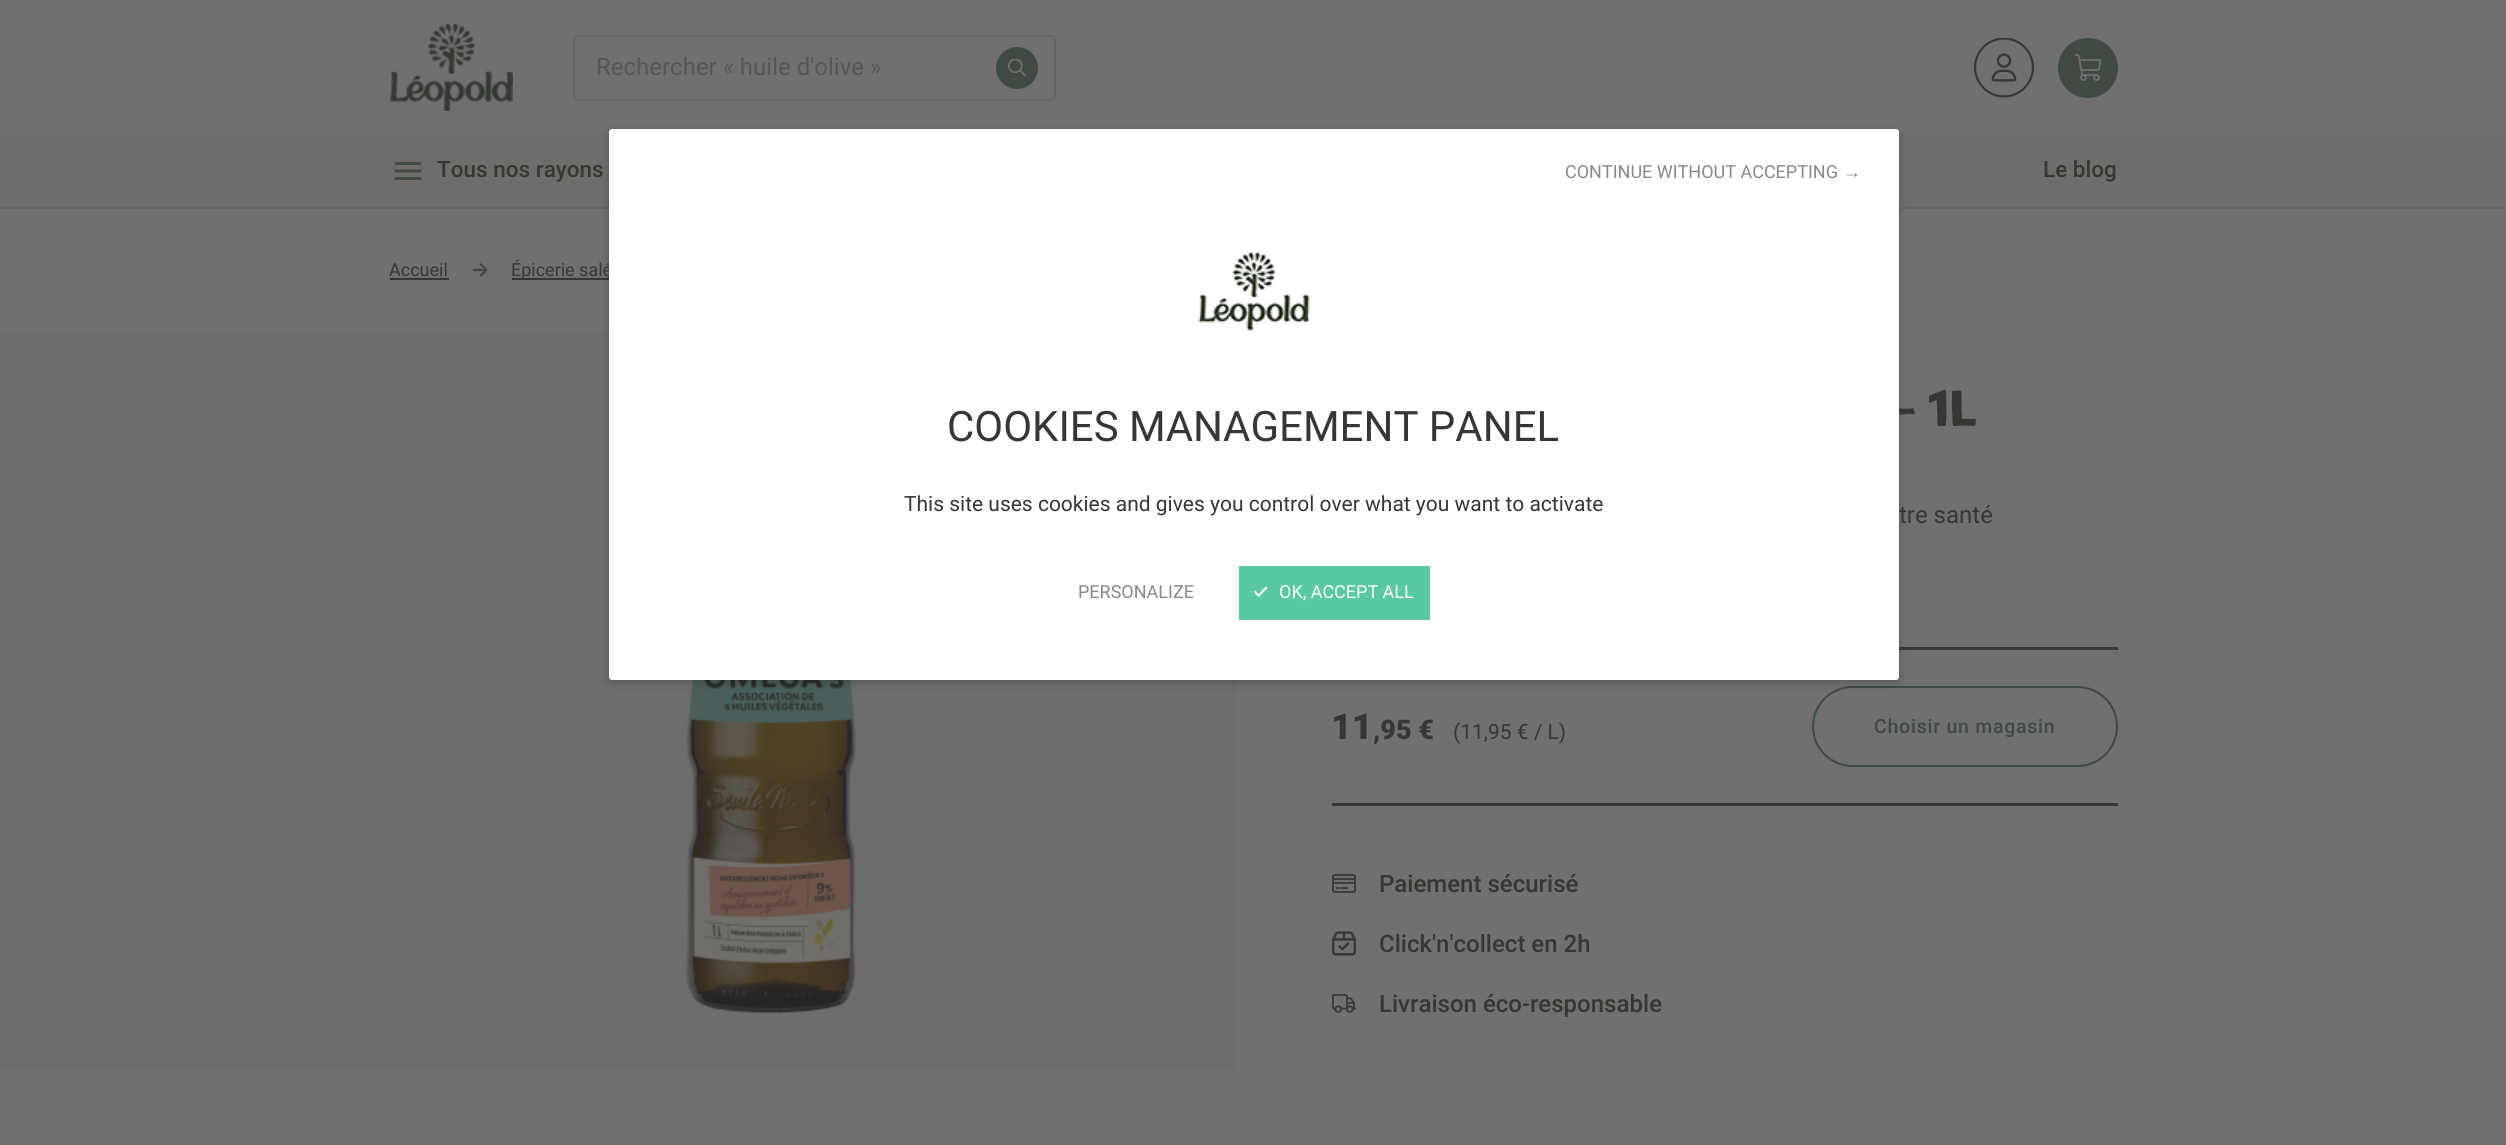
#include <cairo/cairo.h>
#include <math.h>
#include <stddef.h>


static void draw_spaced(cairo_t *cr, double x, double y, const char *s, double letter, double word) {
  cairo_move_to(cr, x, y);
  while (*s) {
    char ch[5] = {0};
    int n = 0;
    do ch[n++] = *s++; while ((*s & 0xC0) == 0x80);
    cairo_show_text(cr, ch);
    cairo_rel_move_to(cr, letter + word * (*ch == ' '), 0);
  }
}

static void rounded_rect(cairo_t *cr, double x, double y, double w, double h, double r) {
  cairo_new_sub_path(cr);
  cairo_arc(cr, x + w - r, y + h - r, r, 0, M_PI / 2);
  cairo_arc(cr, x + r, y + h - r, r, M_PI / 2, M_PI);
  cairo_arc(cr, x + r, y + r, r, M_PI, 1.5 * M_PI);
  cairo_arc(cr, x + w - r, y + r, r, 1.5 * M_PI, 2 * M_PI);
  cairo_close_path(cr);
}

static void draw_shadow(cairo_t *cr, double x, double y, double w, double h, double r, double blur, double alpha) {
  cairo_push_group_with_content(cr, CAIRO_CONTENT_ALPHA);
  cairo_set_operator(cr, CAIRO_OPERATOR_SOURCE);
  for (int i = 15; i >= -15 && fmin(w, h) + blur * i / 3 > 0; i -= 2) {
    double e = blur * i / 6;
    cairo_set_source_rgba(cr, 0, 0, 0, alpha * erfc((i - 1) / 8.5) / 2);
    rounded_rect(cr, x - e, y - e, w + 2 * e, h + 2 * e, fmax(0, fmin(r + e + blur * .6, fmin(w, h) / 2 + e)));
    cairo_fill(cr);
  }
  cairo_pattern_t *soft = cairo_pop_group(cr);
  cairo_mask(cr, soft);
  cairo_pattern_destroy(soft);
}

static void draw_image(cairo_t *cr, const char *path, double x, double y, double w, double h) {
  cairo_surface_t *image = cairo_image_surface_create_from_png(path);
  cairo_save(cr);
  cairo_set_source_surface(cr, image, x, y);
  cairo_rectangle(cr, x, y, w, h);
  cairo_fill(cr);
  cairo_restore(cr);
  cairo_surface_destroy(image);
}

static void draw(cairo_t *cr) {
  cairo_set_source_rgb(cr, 112 / 255.0, 112 / 255.0, 112 / 255.0);
  cairo_paint(cr);
  cairo_set_source_rgb(cr, 101 / 255.0, 101 / 255.0, 101 / 255.0);
  cairo_rectangle(cr, 0, 207, 2506, 2);
  cairo_fill(cr);
  draw_image(cr, "images/1.png", 389, 24, 124, 87);
  rounded_rect(cr, 574, 36, 481, 64, 5);
  cairo_stroke(cr);
  cairo_set_source_rgb(cr, 63 / 255.0, 74 / 255.0, 66 / 255.0);
  cairo_arc(cr, 1017, 68, 21, 0, 2 * M_PI);
  cairo_fill(cr);
  draw_image(cr, "images/2.png", 1008, 59, 18, 18);
  draw_image(cr, "images/3.png", 1974, 38, 60, 60);
  cairo_arc(cr, 2088, 68, 30, 0, 2 * M_PI);
  cairo_fill(cr);
  draw_image(cr, "images/4.png", 2075, 54, 27, 27);
  cairo_set_source_rgb(cr, 110 / 255.0, 109 / 255.0, 107 / 255.0);
  cairo_rectangle(cr, 0, 135, 2506, 72);
  cairo_fill(cr);
  draw_image(cr, "images/5.png", 394, 162, 28, 18);
  cairo_set_source_rgb(cr, 53 / 255.0, 56 / 255.0, 50 / 255.0);
  cairo_rectangle(cr, 512, 278, 97, 2);
  cairo_fill(cr);
  cairo_set_source_rgb(cr, 110 / 255.0, 109 / 255.0, 107 / 255.0);
  cairo_rectangle(cr, 0, 332, 1236, 738);
  cairo_fill(cr);
  draw_image(cr, "images/9.png", 685, 680, 172, 335);
  cairo_set_source_rgb(cr, 53 / 255.0, 56 / 255.0, 50 / 255.0);
  cairo_rectangle(cr, 1899, 647, 219, 3);
  cairo_fill(cr);
  rounded_rect(cr, 1813, 687, 304, 79, 39.5);
  cairo_set_source_rgb(cr, 63 / 255.0, 74 / 255.0, 66 / 255.0);
  cairo_stroke(cr);
  cairo_set_source_rgb(cr, 0, 0, 0);
  draw_shadow(cr, 609, 132, 1290, 551, 3, 4.5, 0.2);
  cairo_set_source_rgb(cr, 53 / 255.0, 56 / 255.0, 50 / 255.0);
  cairo_rectangle(cr, 390, 278, 59, 2);
  cairo_fill(cr);
  draw_image(cr, "images/8.png", 473, 263, 15, 14);
  cairo_rectangle(cr, 1332, 803, 786, 3);
  cairo_fill(cr);
  draw_image(cr, "images/10.png", 1332, 874, 24, 19);
  draw_image(cr, "images/11.png", 1332, 931, 24, 25);
  draw_image(cr, "images/12.png", 1332, 994, 24, 19);
  cairo_select_font_face(cr, "Roboto", CAIRO_FONT_SLANT_NORMAL, CAIRO_FONT_WEIGHT_NORMAL);
  cairo_set_font_size(cr, 24);
  cairo_set_source_rgb(cr, 86 / 255.0, 86 / 255.0, 86 / 255.0);
  cairo_move_to(cr, 596, 75);
  cairo_show_text(cr, "Rechercher « huile d'olive »");
  cairo_select_font_face(cr, "Roboto Medium", CAIRO_FONT_SLANT_NORMAL, CAIRO_FONT_WEIGHT_NORMAL);
  cairo_set_font_size(cr, 22.5);
  cairo_set_source_rgb(cr, 53 / 255.0, 56 / 255.0, 50 / 255.0);
  cairo_move_to(cr, 437, 177);
  cairo_show_text(cr, "Tous nos rayons");
  cairo_move_to(cr, 2043, 177);
  cairo_show_text(cr, "Le blog");
  cairo_select_font_face(cr, "Roboto", CAIRO_FONT_SLANT_NORMAL, CAIRO_FONT_WEIGHT_NORMAL);
  cairo_set_font_size(cr, 18);
  cairo_move_to(cr, 389, 276);
  cairo_show_text(cr, "Accueil");
  cairo_move_to(cr, 511, 276);
  cairo_show_text(cr, "Épicerie salé");
  cairo_select_font_face(cr, "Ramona", CAIRO_FONT_SLANT_NORMAL, CAIRO_FONT_WEIGHT_BOLD);
  cairo_set_font_size(cr, 48);
  cairo_move_to(cr, 1897, 426);
  cairo_show_text(cr, "- 1L");
  cairo_set_source_rgb(cr, 1, 1, 1);
  rounded_rect(cr, 609, 129, 1290, 551, 3);
  cairo_fill(cr);
  cairo_select_font_face(cr, "Liberation Sans", CAIRO_FONT_SLANT_NORMAL, CAIRO_FONT_WEIGHT_NORMAL);
  cairo_set_font_size(cr, 18);
  cairo_set_source_rgb(cr, 136 / 255.0, 136 / 255.0, 136 / 255.0);
  cairo_move_to(cr, 1843, 178);
  cairo_show_text(cr, "→");
  cairo_select_font_face(cr, "Roboto", CAIRO_FONT_SLANT_NORMAL, CAIRO_FONT_WEIGHT_NORMAL);
  cairo_move_to(cr, 1565, 178);
  cairo_show_text(cr, "CONTINUE WITHOUT ACCEPTING");
  cairo_set_source_rgb(cr, 89 / 255.0, 201 / 255.0, 165 / 255.0);
  cairo_rectangle(cr, 1239, 566, 191, 54);
  cairo_fill(cr);
  draw_image(cr, "images/6.png", 1254, 586, 14, 11);
  cairo_set_source_rgb(cr, 1, 1, 1);
  cairo_move_to(cr, 1279, 598);
  cairo_show_text(cr, "OK, ACCEPT ALL");
  cairo_set_source_rgb(cr, 136 / 255.0, 136 / 255.0, 136 / 255.0);
  cairo_move_to(cr, 1078, 598);
  cairo_show_text(cr, "PERSONALIZE");
  cairo_set_font_size(cr, 21);
  cairo_set_source_rgb(cr, 53 / 255.0, 56 / 255.0, 50 / 255.0);
  cairo_move_to(cr, 904, 511);
  cairo_show_text(cr, "This site uses cookies and gives you control over what you want to activate");
  cairo_set_font_size(cr, 42);
  cairo_move_to(cr, 947, 441);
  cairo_show_text(cr, "COOKIES MANAGEMENT PANEL");
  draw_image(cr, "images/7.png", 1198, 251, 112, 80);
  cairo_set_font_size(cr, 24);
  cairo_move_to(cr, 1899, 523);
  cairo_show_text(cr, "tre santé");
  cairo_select_font_face(cr, "Roboto Black", CAIRO_FONT_SLANT_NORMAL, CAIRO_FONT_WEIGHT_NORMAL);
  cairo_set_font_size(cr, 36);
  cairo_move_to(cr, 1331, 739);
  cairo_show_text(cr, "11");
  cairo_set_font_size(cr, 27);
  cairo_move_to(cr, 1373, 739);
  cairo_show_text(cr, ",95 €");
  cairo_select_font_face(cr, "Roboto", CAIRO_FONT_SLANT_NORMAL, CAIRO_FONT_WEIGHT_NORMAL);
  cairo_set_font_size(cr, 21);
  cairo_move_to(cr, 1453, 739);
  cairo_show_text(cr, "(11,95 € / L)");
  cairo_select_font_face(cr, "Roboto Medium", CAIRO_FONT_SLANT_NORMAL, CAIRO_FONT_WEIGHT_NORMAL);
  cairo_set_font_size(cr, 19.5);
  cairo_set_source_rgb(cr, 63 / 255.0, 74 / 255.0, 66 / 255.0);
  draw_spaced(cr, 1874, 733, "Choisir un magasin", 0.75, 0);
  cairo_set_font_size(cr, 24);
  cairo_set_source_rgb(cr, 53 / 255.0, 56 / 255.0, 50 / 255.0);
  cairo_move_to(cr, 1379, 892);
  cairo_show_text(cr, "Paiement sécurisé");
  cairo_move_to(cr, 1379, 952);
  cairo_show_text(cr, "Click'n'collect en 2h");
  cairo_move_to(cr, 1379, 1012);
  cairo_show_text(cr, "Livraison éco-responsable");
}

int main(void) {
  cairo_surface_t *surface = cairo_image_surface_create(CAIRO_FORMAT_RGB24, 2506, 1145);
  cairo_t *cr = cairo_create(surface);
  cairo_font_options_t *options = cairo_font_options_create();
  cairo_font_options_set_hint_metrics(options, CAIRO_HINT_METRICS_OFF);
  cairo_font_options_set_hint_style(options, CAIRO_HINT_STYLE_NONE);
  cairo_set_font_options(cr, options);
  cairo_set_miter_limit(cr, 4);
  draw(cr);
  cairo_surface_write_to_png(surface, "out.png");
  cairo_font_options_destroy(options);
  cairo_destroy(cr);
  cairo_surface_destroy(surface);
  return 0;
}
